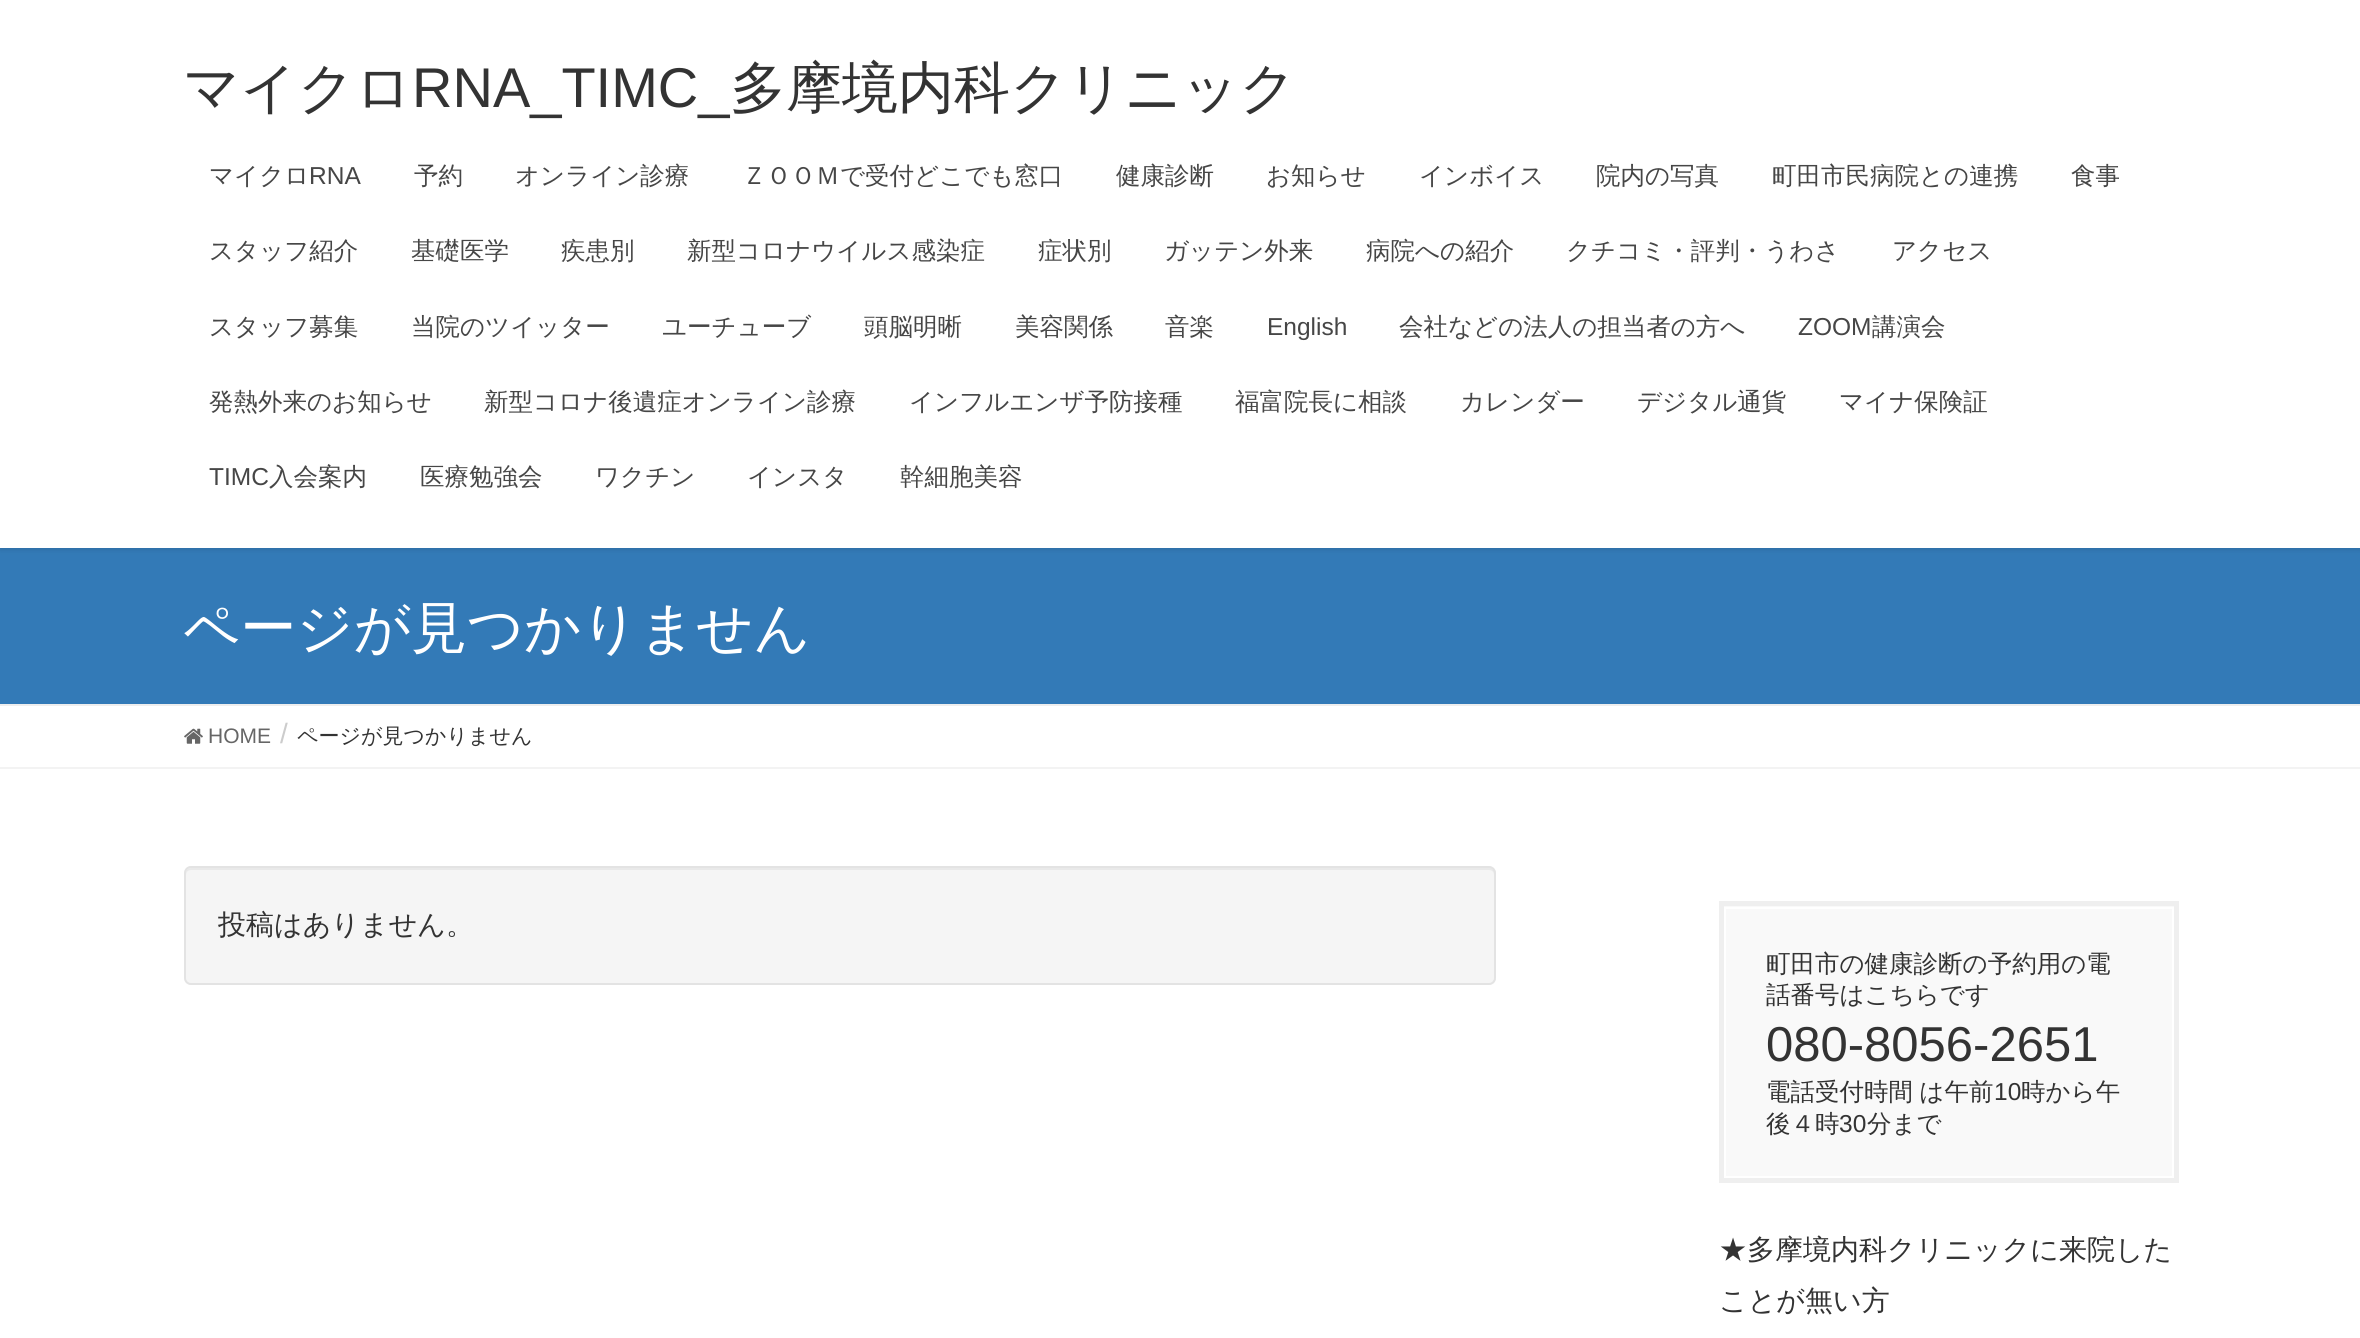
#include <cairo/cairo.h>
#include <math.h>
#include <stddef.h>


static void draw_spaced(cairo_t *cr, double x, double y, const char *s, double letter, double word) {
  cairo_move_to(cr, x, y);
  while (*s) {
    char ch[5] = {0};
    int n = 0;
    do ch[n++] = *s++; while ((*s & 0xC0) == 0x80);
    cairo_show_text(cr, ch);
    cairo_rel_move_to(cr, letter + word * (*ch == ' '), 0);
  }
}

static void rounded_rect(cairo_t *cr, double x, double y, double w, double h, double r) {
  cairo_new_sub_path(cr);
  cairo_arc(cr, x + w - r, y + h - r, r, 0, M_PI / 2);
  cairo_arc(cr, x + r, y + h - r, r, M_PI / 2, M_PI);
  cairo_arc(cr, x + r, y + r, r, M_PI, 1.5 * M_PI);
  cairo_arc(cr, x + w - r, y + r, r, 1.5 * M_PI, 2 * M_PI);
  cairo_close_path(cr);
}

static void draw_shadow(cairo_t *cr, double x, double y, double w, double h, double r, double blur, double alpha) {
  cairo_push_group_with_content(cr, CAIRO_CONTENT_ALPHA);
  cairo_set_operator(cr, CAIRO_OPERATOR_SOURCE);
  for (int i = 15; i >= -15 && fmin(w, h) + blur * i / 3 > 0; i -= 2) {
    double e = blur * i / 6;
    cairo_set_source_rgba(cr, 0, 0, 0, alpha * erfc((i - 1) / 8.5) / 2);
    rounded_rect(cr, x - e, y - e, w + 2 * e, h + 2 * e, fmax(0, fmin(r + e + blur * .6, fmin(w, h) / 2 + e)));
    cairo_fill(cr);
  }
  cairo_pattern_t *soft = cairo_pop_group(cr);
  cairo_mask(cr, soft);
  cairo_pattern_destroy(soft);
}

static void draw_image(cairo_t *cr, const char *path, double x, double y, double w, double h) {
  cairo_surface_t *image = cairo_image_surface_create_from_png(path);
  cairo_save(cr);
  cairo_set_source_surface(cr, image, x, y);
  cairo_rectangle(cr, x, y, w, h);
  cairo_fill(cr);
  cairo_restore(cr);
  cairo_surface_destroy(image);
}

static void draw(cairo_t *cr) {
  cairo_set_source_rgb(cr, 1, 1, 1);
  cairo_paint(cr);
  cairo_set_source_rgb(cr, 51 / 255.0, 122 / 255.0, 183 / 255.0);
  cairo_rectangle(cr, 0, 548, 2360, 156);
  cairo_fill(cr);
  cairo_set_source_rgb(cr, 0, 0, 0);
  draw_shadow(cr, 0, 2, 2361, 548, 0, 2.5, 0.1);
  cairo_set_source_rgb(cr, 1, 1, 1);
  cairo_rectangle(cr, 0, 0, 2360, 548);
  cairo_fill(cr);
  cairo_set_source_rgb(cr, 238 / 255.0, 238 / 255.0, 238 / 255.0);
  cairo_rectangle(cr, 0, 704, 2360, 2);
  cairo_fill(cr);
  cairo_set_source_rgb(cr, 243 / 255.0, 243 / 255.0, 243 / 255.0);
  cairo_rectangle(cr, 0, 767, 2360, 2);
  cairo_fill(cr);
  draw_image(cr, "images/1.png", 184, 728, 19, 16);
  cairo_set_source_rgb(cr, 245 / 255.0, 245 / 255.0, 245 / 255.0);
  rounded_rect(cr, 184, 866, 1312, 119, 7);
  cairo_fill(cr);
  cairo_set_source_rgb(cr, 233 / 255.0, 233 / 255.0, 233 / 255.0);
  cairo_new_path(cr);
  cairo_move_to(cr, 191, 870);
  cairo_line_to(cr, 1489, 870);
  cairo_curve_to(cr, 1492, 870, 1494, 872, 1494, 875);
  cairo_line_to(cr, 1494, 980);
  cairo_line_to(cr, 1493, 983);
  cairo_curve_to(cr, 1494, 982, 1495, 980, 1495, 979);
  cairo_line_to(cr, 1495, 873);
  cairo_curve_to(cr, 1495, 870, 1493, 868, 1490, 868);
  cairo_line_to(cr, 191, 868);
  cairo_curve_to(cr, 188, 868, 186, 870, 186, 873);
  cairo_line_to(cr, 186, 875);
  cairo_curve_to(cr, 186, 872, 188, 870, 191, 870);
  cairo_close_path(cr);
  cairo_fill(cr);
  rounded_rect(cr, 185, 867, 1310, 117, 6);
  cairo_set_source_rgb(cr, 227 / 255.0, 227 / 255.0, 227 / 255.0);
  cairo_stroke(cr);
  cairo_set_source_rgb(cr, 249 / 255.0, 249 / 255.0, 249 / 255.0);
  cairo_rectangle(cr, 1724, 906, 450, 270);
  cairo_fill(cr);
  cairo_rectangle(cr, 1725, 908, 448, 269);
  cairo_set_source_rgb(cr, 1, 1, 1);
  cairo_stroke(cr);
  cairo_rectangle(cr, 1721.5, 903.5, 455, 277);
  cairo_set_source_rgb(cr, 239 / 255.0, 239 / 255.0, 239 / 255.0);
  cairo_set_line_width(cr, 5);
  cairo_stroke(cr);
  cairo_select_font_face(cr, "WenQuanYi Zen Hei Medium", CAIRO_FONT_SLANT_NORMAL, CAIRO_FONT_WEIGHT_NORMAL);
  cairo_set_font_size(cr, 56);
  cairo_set_source_rgb(cr, 51 / 255.0, 51 / 255.0, 51 / 255.0);
  cairo_move_to(cr, 183, 107);
  cairo_show_text(cr, "マイクロ");
  cairo_select_font_face(cr, "Liberation Sans", CAIRO_FONT_SLANT_NORMAL, CAIRO_FONT_WEIGHT_NORMAL);
  cairo_move_to(cr, 412, 107);
  cairo_show_text(cr, "RNA_TIMC_");
  cairo_select_font_face(cr, "WenQuanYi Zen Hei Medium", CAIRO_FONT_SLANT_NORMAL, CAIRO_FONT_WEIGHT_NORMAL);
  cairo_move_to(cr, 730, 107);
  cairo_show_text(cr, "多摩境内科クリニック");
  cairo_set_font_size(cr, 24.5);
  cairo_set_source_rgb(cr, 70 / 255.0, 70 / 255.0, 70 / 255.0);
  cairo_move_to(cr, 209, 184);
  cairo_show_text(cr, "マイクロ");
  cairo_select_font_face(cr, "Liberation Sans", CAIRO_FONT_SLANT_NORMAL, CAIRO_FONT_WEIGHT_NORMAL);
  cairo_move_to(cr, 309, 184);
  cairo_show_text(cr, "RNA");
  cairo_select_font_face(cr, "WenQuanYi Zen Hei Medium", CAIRO_FONT_SLANT_NORMAL, CAIRO_FONT_WEIGHT_NORMAL);
  cairo_move_to(cr, 414, 184);
  cairo_show_text(cr, "予約");
  cairo_move_to(cr, 515, 184);
  cairo_show_text(cr, "オンライン診療");
  cairo_move_to(cr, 742, 184);
  cairo_show_text(cr, "ＺＯＯＭで受付どこでも窓口");
  cairo_move_to(cr, 1116, 184);
  cairo_show_text(cr, "健康診断");
  cairo_move_to(cr, 1266, 184);
  cairo_show_text(cr, "お知らせ");
  cairo_move_to(cr, 1419, 184);
  cairo_show_text(cr, "インボイス");
  cairo_move_to(cr, 1596, 184);
  cairo_show_text(cr, "院内の写真");
  cairo_move_to(cr, 1772, 184);
  cairo_show_text(cr, "町田市民病院との連携");
  cairo_move_to(cr, 2071, 184);
  cairo_show_text(cr, "食事");
  cairo_move_to(cr, 209, 259);
  cairo_show_text(cr, "スタッフ紹介");
  cairo_move_to(cr, 411, 259);
  cairo_show_text(cr, "基礎医学");
  cairo_move_to(cr, 561, 259);
  cairo_show_text(cr, "疾患別");
  cairo_move_to(cr, 687, 259);
  cairo_show_text(cr, "新型コロナウイルス感染症");
  cairo_move_to(cr, 1038, 259);
  cairo_show_text(cr, "症状別");
  cairo_move_to(cr, 1164, 259);
  cairo_show_text(cr, "ガッテン外来");
  cairo_move_to(cr, 1366, 259);
  cairo_show_text(cr, "病院への紹介");
  cairo_move_to(cr, 1566, 259);
  cairo_show_text(cr, "クチコミ・評判・うわさ");
  cairo_move_to(cr, 1892, 259);
  cairo_show_text(cr, "アクセス");
  cairo_move_to(cr, 209, 335);
  cairo_show_text(cr, "スタッフ募集");
  cairo_move_to(cr, 411, 335);
  cairo_show_text(cr, "当院のツイッター");
  cairo_move_to(cr, 662, 335);
  cairo_show_text(cr, "ユーチューブ");
  cairo_move_to(cr, 864, 335);
  cairo_show_text(cr, "頭脳明晰");
  cairo_move_to(cr, 1015, 335);
  cairo_show_text(cr, "美容関係");
  cairo_move_to(cr, 1165, 335);
  cairo_show_text(cr, "音楽");
  cairo_select_font_face(cr, "Liberation Sans", CAIRO_FONT_SLANT_NORMAL, CAIRO_FONT_WEIGHT_NORMAL);
  cairo_move_to(cr, 1267, 335);
  cairo_show_text(cr, "English");
  cairo_select_font_face(cr, "WenQuanYi Zen Hei Medium", CAIRO_FONT_SLANT_NORMAL, CAIRO_FONT_WEIGHT_NORMAL);
  cairo_move_to(cr, 1399, 335);
  cairo_show_text(cr, "会社などの法人の担当者の方へ");
  cairo_select_font_face(cr, "Liberation Sans", CAIRO_FONT_SLANT_NORMAL, CAIRO_FONT_WEIGHT_NORMAL);
  cairo_move_to(cr, 1798, 335);
  cairo_show_text(cr, "ZOOM");
  cairo_select_font_face(cr, "WenQuanYi Zen Hei Medium", CAIRO_FONT_SLANT_NORMAL, CAIRO_FONT_WEIGHT_NORMAL);
  cairo_move_to(cr, 1872, 335);
  cairo_show_text(cr, "講演会");
  cairo_move_to(cr, 209, 410);
  cairo_show_text(cr, "発熱外来のお知らせ");
  cairo_move_to(cr, 484, 410);
  cairo_show_text(cr, "新型コロナ後遺症オンライン診療");
  cairo_move_to(cr, 909, 410);
  cairo_show_text(cr, "インフルエンザ予防接種");
  cairo_move_to(cr, 1235, 410);
  cairo_show_text(cr, "福富院長に相談");
  cairo_move_to(cr, 1460, 410);
  cairo_show_text(cr, "カレンダー");
  cairo_move_to(cr, 1637, 410);
  cairo_show_text(cr, "デジタル通貨");
  cairo_move_to(cr, 1839, 410);
  cairo_show_text(cr, "マイナ保険証");
  cairo_select_font_face(cr, "Liberation Sans", CAIRO_FONT_SLANT_NORMAL, CAIRO_FONT_WEIGHT_NORMAL);
  cairo_move_to(cr, 209, 485);
  cairo_show_text(cr, "TIMC");
  cairo_select_font_face(cr, "WenQuanYi Zen Hei Medium", CAIRO_FONT_SLANT_NORMAL, CAIRO_FONT_WEIGHT_NORMAL);
  cairo_move_to(cr, 269, 485);
  cairo_show_text(cr, "入会案内");
  cairo_move_to(cr, 420, 485);
  cairo_show_text(cr, "医療勉強会");
  cairo_move_to(cr, 595, 485);
  cairo_show_text(cr, "ワクチン");
  cairo_move_to(cr, 747, 485);
  cairo_show_text(cr, "インスタ");
  cairo_move_to(cr, 900, 485);
  cairo_show_text(cr, "幹細胞美容");
  cairo_set_font_size(cr, 56);
  cairo_set_source_rgb(cr, 1, 1, 1);
  cairo_move_to(cr, 183, 647);
  cairo_show_text(cr, "ページが見つかりません");
  cairo_select_font_face(cr, "Liberation Sans", CAIRO_FONT_SLANT_NORMAL, CAIRO_FONT_WEIGHT_NORMAL);
  cairo_set_font_size(cr, 21);
  cairo_set_source_rgb(cr, 102 / 255.0, 102 / 255.0, 102 / 255.0);
  cairo_move_to(cr, 208, 743);
  cairo_show_text(cr, "HOME");
  cairo_set_font_size(cr, 28);
  cairo_set_source_rgb(cr, 204 / 255.0, 204 / 255.0, 204 / 255.0);
  cairo_move_to(cr, 280, 743);
  cairo_show_text(cr, "/");
  cairo_select_font_face(cr, "WenQuanYi Zen Hei Medium", CAIRO_FONT_SLANT_NORMAL, CAIRO_FONT_WEIGHT_NORMAL);
  cairo_set_font_size(cr, 21);
  cairo_set_source_rgb(cr, 51 / 255.0, 51 / 255.0, 51 / 255.0);
  cairo_move_to(cr, 297, 743);
  cairo_show_text(cr, "ページが見つかりません");
  cairo_set_font_size(cr, 28);
  cairo_move_to(cr, 218, 934);
  cairo_show_text(cr, "投稿はありません。");
  cairo_set_font_size(cr, 24.5);
  cairo_move_to(cr, 1766, 972);
  cairo_show_text(cr, "町田市の健康診断の予約用の電");
  cairo_move_to(cr, 1766, 1003);
  cairo_show_text(cr, "話番号はこちらです");
  cairo_select_font_face(cr, "Liberation Sans", CAIRO_FONT_SLANT_NORMAL, CAIRO_FONT_WEIGHT_NORMAL);
  cairo_set_font_size(cr, 49);
  cairo_move_to(cr, 1766, 1061);
  cairo_show_text(cr, "080-8056-2651");
  cairo_select_font_face(cr, "WenQuanYi Zen Hei Medium", CAIRO_FONT_SLANT_NORMAL, CAIRO_FONT_WEIGHT_NORMAL);
  cairo_set_font_size(cr, 24.5);
  draw_spaced(cr, 1766, 1100, "電話受付時間 は午前", 0, -1);
  cairo_select_font_face(cr, "Liberation Sans", CAIRO_FONT_SLANT_NORMAL, CAIRO_FONT_WEIGHT_NORMAL);
  cairo_move_to(cr, 1994, 1100);
  cairo_show_text(cr, "10");
  cairo_select_font_face(cr, "WenQuanYi Zen Hei Medium", CAIRO_FONT_SLANT_NORMAL, CAIRO_FONT_WEIGHT_NORMAL);
  cairo_move_to(cr, 2021, 1100);
  cairo_show_text(cr, "時から午");
  cairo_move_to(cr, 1766, 1132);
  cairo_show_text(cr, "後４時");
  cairo_select_font_face(cr, "Liberation Sans", CAIRO_FONT_SLANT_NORMAL, CAIRO_FONT_WEIGHT_NORMAL);
  cairo_move_to(cr, 1839, 1132);
  cairo_show_text(cr, "30");
  cairo_select_font_face(cr, "WenQuanYi Zen Hei Medium", CAIRO_FONT_SLANT_NORMAL, CAIRO_FONT_WEIGHT_NORMAL);
  cairo_move_to(cr, 1867, 1132);
  cairo_show_text(cr, "分まで");
  cairo_set_font_size(cr, 28);
  cairo_move_to(cr, 1719, 1259);
  cairo_show_text(cr, "★多摩境内科クリニックに来院した");
  cairo_move_to(cr, 1719, 1310);
  cairo_show_text(cr, "ことが無い方");
}

int main(void) {
  cairo_surface_t *surface = cairo_image_surface_create(CAIRO_FORMAT_RGB24, 2360, 1338);
  cairo_t *cr = cairo_create(surface);
  cairo_font_options_t *options = cairo_font_options_create();
  cairo_font_options_set_hint_metrics(options, CAIRO_HINT_METRICS_OFF);
  cairo_font_options_set_hint_style(options, CAIRO_HINT_STYLE_NONE);
  cairo_set_font_options(cr, options);
  cairo_set_miter_limit(cr, 4);
  draw(cr);
  cairo_surface_write_to_png(surface, "out.png");
  cairo_font_options_destroy(options);
  cairo_destroy(cr);
  cairo_surface_destroy(surface);
  return 0;
}
